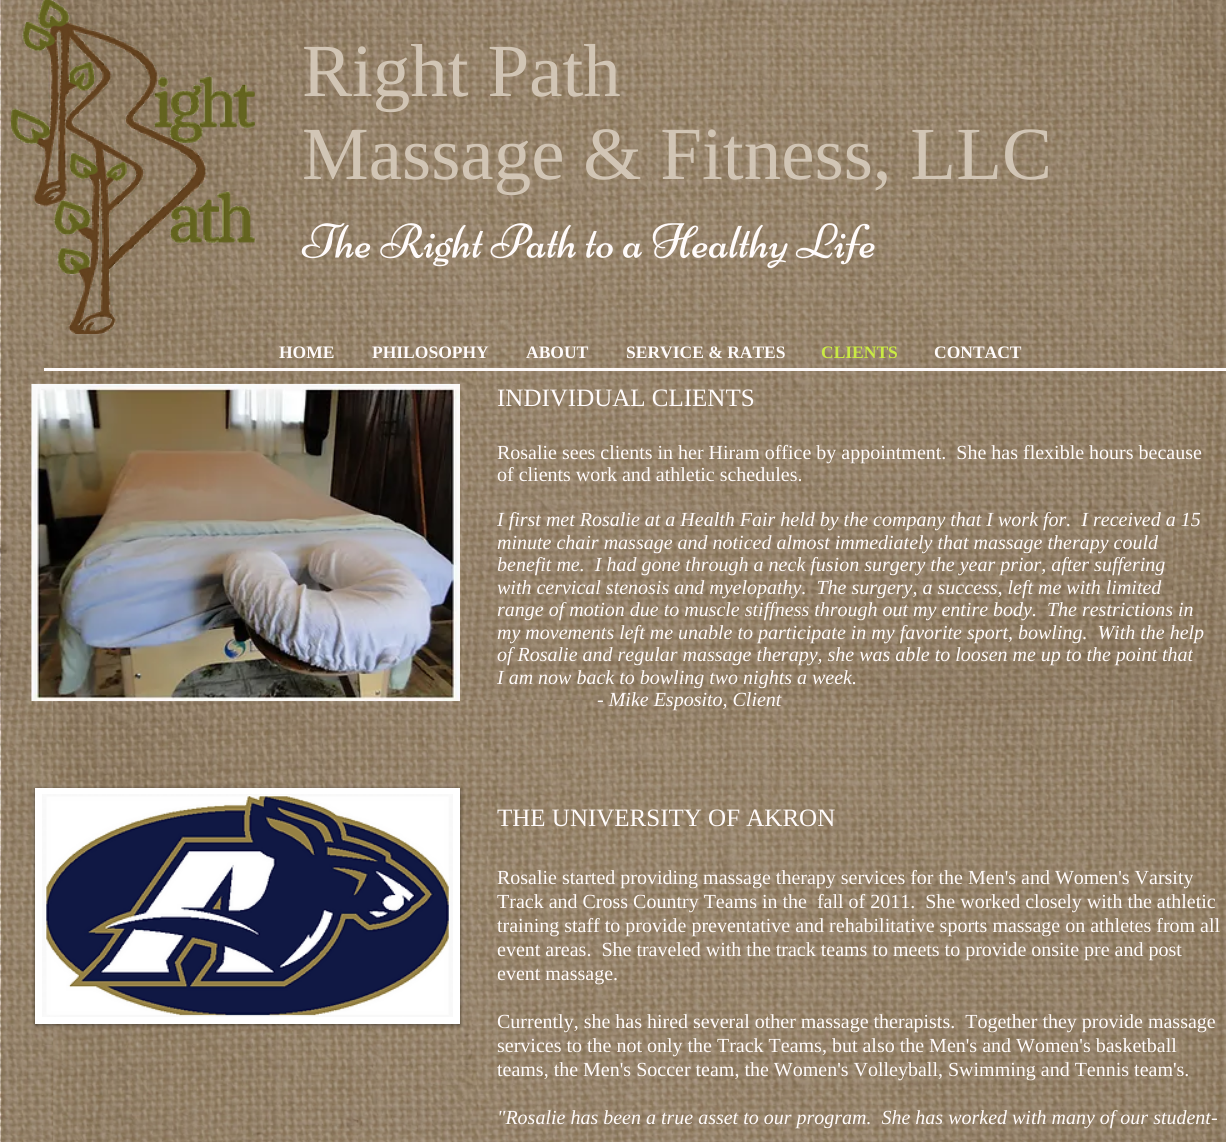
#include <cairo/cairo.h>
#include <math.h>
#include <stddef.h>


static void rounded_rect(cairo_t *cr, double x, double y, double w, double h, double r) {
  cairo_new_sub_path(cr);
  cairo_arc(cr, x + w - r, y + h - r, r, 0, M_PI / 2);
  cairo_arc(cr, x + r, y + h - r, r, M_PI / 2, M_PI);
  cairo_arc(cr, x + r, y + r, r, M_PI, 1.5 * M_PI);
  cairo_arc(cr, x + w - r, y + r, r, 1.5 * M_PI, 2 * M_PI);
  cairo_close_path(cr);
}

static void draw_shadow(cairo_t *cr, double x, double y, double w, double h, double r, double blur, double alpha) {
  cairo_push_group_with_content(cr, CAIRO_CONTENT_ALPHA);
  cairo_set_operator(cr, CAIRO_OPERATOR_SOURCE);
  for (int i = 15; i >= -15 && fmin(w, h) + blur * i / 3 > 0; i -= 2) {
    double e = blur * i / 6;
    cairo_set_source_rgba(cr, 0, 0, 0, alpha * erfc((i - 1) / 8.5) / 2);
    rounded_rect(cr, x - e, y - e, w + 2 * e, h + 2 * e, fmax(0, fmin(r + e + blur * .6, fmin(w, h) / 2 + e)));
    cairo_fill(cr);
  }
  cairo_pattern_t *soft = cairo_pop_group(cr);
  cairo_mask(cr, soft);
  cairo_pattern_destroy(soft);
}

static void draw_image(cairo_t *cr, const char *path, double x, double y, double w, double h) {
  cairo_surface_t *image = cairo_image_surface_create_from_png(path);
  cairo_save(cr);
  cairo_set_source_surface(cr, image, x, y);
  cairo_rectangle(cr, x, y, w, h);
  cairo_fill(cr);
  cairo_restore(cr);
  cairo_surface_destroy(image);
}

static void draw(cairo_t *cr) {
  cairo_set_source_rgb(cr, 1, 1, 1);
  cairo_paint(cr);
  draw_image(cr, "images/1.png", 0, 0, 1226, 1142);
  cairo_set_source_rgba(cr, 119 / 255.0, 98 / 255.0, 71 / 255.0, 0.6);
  cairo_rectangle(cr, 1, 0, 1225, 371);
  cairo_fill(cr);
  draw_image(cr, "images/2.png", 11, 0, 244, 334);
  draw_image(cr, "images/3.png", 11, 0, 244, 334);
  draw_image(cr, "images/4.png", 11, 0, 244, 334);
  draw_image(cr, "images/5.png", 11, 0, 244, 334);
  draw_image(cr, "images/6.png", 16, 1, 239, 332);
  draw_image(cr, "images/7.png", 301, 223, 574, 46);
  cairo_set_source_rgb(cr, 1, 251 / 255.0, 251 / 255.0);
  cairo_rectangle(cr, 44, 368, 1182, 3);
  cairo_fill(cr);
  cairo_set_source_rgba(cr, 119 / 255.0, 98 / 255.0, 71 / 255.0, 0.6);
  cairo_rectangle(cr, 1, 371, 1225, 771);
  cairo_fill(cr);
  draw_image(cr, "images/8.png", 31, 383, 429, 319);
  cairo_set_source_rgb(cr, 0, 0, 0);
  draw_shadow(cr, 35, 789, 425, 236, 0, 2, 0.5);
  cairo_set_source_rgb(cr, 1, 1, 1);
  cairo_rectangle(cr, 35, 788, 425, 236);
  cairo_fill(cr);
  draw_image(cr, "images/9.png", 42, 794, 411, 223);
  cairo_select_font_face(cr, "Liberation Serif", CAIRO_FONT_SLANT_NORMAL, CAIRO_FONT_WEIGHT_NORMAL);
  cairo_set_font_size(cr, 75);
  cairo_set_source_rgb(cr, 209 / 255.0, 197 / 255.0, 181 / 255.0);
  cairo_move_to(cr, 302, 96);
  cairo_show_text(cr, "Right Path");
  cairo_move_to(cr, 302, 179);
  cairo_show_text(cr, "Massage & Fitness, LLC");
  cairo_select_font_face(cr, "Liberation Serif", CAIRO_FONT_SLANT_NORMAL, CAIRO_FONT_WEIGHT_BOLD);
  cairo_set_font_size(cr, 17.5);
  cairo_set_source_rgb(cr, 1, 251 / 255.0, 251 / 255.0);
  cairo_move_to(cr, 279, 358);
  cairo_show_text(cr, "HOME");
  cairo_move_to(cr, 372, 358);
  cairo_show_text(cr, "PHILOSOPHY");
  cairo_move_to(cr, 526, 358);
  cairo_show_text(cr, "ABOUT");
  cairo_move_to(cr, 626, 358);
  cairo_show_text(cr, "SERVICE & RATES");
  cairo_set_source_rgb(cr, 201 / 255.0, 234 / 255.0, 68 / 255.0);
  cairo_move_to(cr, 821, 358);
  cairo_show_text(cr, "CLIENTS");
  cairo_set_source_rgb(cr, 1, 251 / 255.0, 251 / 255.0);
  cairo_move_to(cr, 934, 358);
  cairo_show_text(cr, "CONTACT");
  cairo_select_font_face(cr, "Liberation Serif", CAIRO_FONT_SLANT_NORMAL, CAIRO_FONT_WEIGHT_NORMAL);
  cairo_set_font_size(cr, 25);
  cairo_move_to(cr, 497, 406);
  cairo_show_text(cr, "INDIVIDUAL CLIENTS");
  cairo_set_font_size(cr, 20);
  cairo_move_to(cr, 497, 459);
  cairo_show_text(cr, "Rosalie sees clients in her Hiram office by appointment.  She has flexible hours because");
  cairo_move_to(cr, 497, 481);
  cairo_show_text(cr, "of clients work and athletic schedules.");
  cairo_select_font_face(cr, "Liberation Serif", CAIRO_FONT_SLANT_ITALIC, CAIRO_FONT_WEIGHT_NORMAL);
  cairo_move_to(cr, 497, 526);
  cairo_show_text(cr, "I first met Rosalie at a Health Fair held by the company that I work for.  I received a 15");
  cairo_move_to(cr, 497, 549);
  cairo_show_text(cr, "minute chair massage and noticed almost immediately that massage therapy could");
  cairo_move_to(cr, 497, 571);
  cairo_show_text(cr, "benefit me.  I had gone through a neck fusion surgery the year prior, after suffering");
  cairo_move_to(cr, 497, 594);
  cairo_show_text(cr, "with cervical stenosis and myelopathy.  The surgery, a success, left me with limited");
  cairo_move_to(cr, 497, 616);
  cairo_show_text(cr, "range of motion due to muscle stiffness through out my entire body.  The restrictions in");
  cairo_move_to(cr, 497, 639);
  cairo_show_text(cr, "my movements left me unable to participate in my favorite sport, bowling.  With the help");
  cairo_move_to(cr, 497, 661);
  cairo_show_text(cr, "of Rosalie and regular massage therapy, she was able to loosen me up to the point that");
  cairo_move_to(cr, 497, 684);
  cairo_show_text(cr, "I am now back to bowling two nights a week.");
  cairo_move_to(cr, 597, 706);
  cairo_show_text(cr, "- Mike Esposito, Client");
  cairo_select_font_face(cr, "Liberation Serif", CAIRO_FONT_SLANT_NORMAL, CAIRO_FONT_WEIGHT_NORMAL);
  cairo_set_font_size(cr, 25);
  cairo_move_to(cr, 497, 826);
  cairo_show_text(cr, "THE UNIVERSITY OF AKRON");
  cairo_set_font_size(cr, 20);
  cairo_move_to(cr, 497, 884);
  cairo_show_text(cr, "Rosalie started providing massage therapy services for the Men's and Women's Varsity");
  cairo_move_to(cr, 497, 908);
  cairo_show_text(cr, "Track and Cross Country Teams in the  fall of 2011.  She worked closely with the athletic");
  cairo_move_to(cr, 497, 932);
  cairo_show_text(cr, "training staff to provide preventative and rehabilitative sports massage on athletes from all");
  cairo_move_to(cr, 497, 956);
  cairo_show_text(cr, "event areas.  She traveled with the track teams to meets to provide onsite pre and post");
  cairo_move_to(cr, 497, 980);
  cairo_show_text(cr, "event massage.");
  cairo_move_to(cr, 497, 1028);
  cairo_show_text(cr, "Currently, she has hired several other massage therapists.  Together they provide massage");
  cairo_move_to(cr, 497, 1052);
  cairo_show_text(cr, "services to the not only the Track Teams, but also the Men's and Women's basketball");
  cairo_move_to(cr, 497, 1076);
  cairo_show_text(cr, "teams, the Men's Soccer team, the Women's Volleyball, Swimming and Tennis team's.");
  cairo_select_font_face(cr, "Liberation Serif", CAIRO_FONT_SLANT_ITALIC, CAIRO_FONT_WEIGHT_NORMAL);
  cairo_move_to(cr, 497, 1124);
  cairo_show_text(cr, "\"Rosalie has been a true asset to our program.  She has worked with many of our student-");
}

int main(void) {
  cairo_surface_t *surface = cairo_image_surface_create(CAIRO_FORMAT_RGB24, 1226, 1142);
  cairo_t *cr = cairo_create(surface);
  cairo_font_options_t *options = cairo_font_options_create();
  cairo_font_options_set_hint_metrics(options, CAIRO_HINT_METRICS_OFF);
  cairo_font_options_set_hint_style(options, CAIRO_HINT_STYLE_NONE);
  cairo_set_font_options(cr, options);
  cairo_set_miter_limit(cr, 4);
  draw(cr);
  cairo_surface_write_to_png(surface, "out.png");
  cairo_font_options_destroy(options);
  cairo_destroy(cr);
  cairo_surface_destroy(surface);
  return 0;
}
